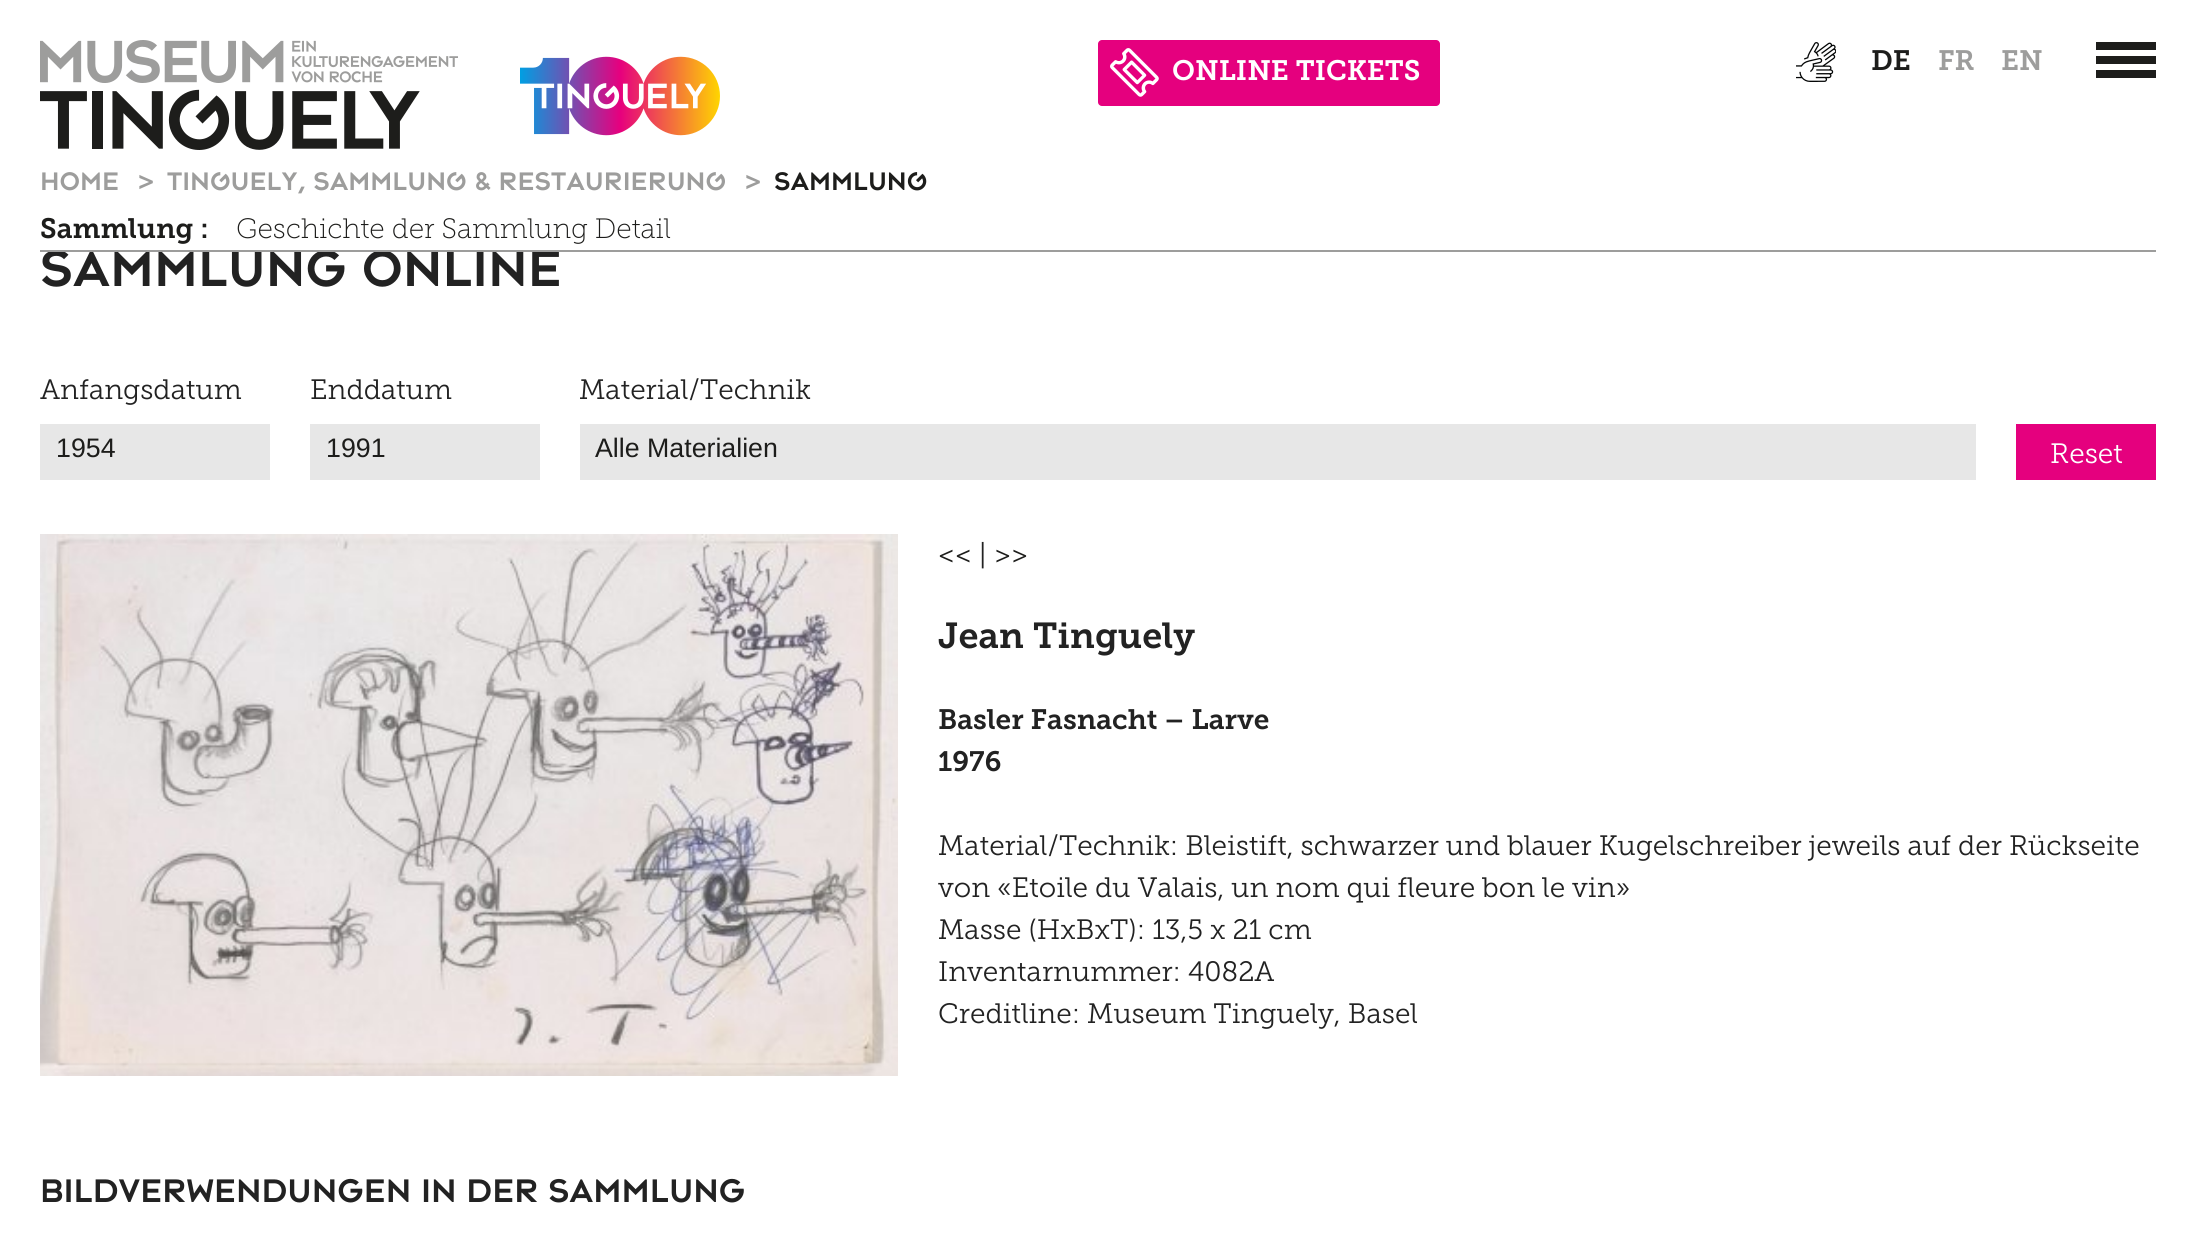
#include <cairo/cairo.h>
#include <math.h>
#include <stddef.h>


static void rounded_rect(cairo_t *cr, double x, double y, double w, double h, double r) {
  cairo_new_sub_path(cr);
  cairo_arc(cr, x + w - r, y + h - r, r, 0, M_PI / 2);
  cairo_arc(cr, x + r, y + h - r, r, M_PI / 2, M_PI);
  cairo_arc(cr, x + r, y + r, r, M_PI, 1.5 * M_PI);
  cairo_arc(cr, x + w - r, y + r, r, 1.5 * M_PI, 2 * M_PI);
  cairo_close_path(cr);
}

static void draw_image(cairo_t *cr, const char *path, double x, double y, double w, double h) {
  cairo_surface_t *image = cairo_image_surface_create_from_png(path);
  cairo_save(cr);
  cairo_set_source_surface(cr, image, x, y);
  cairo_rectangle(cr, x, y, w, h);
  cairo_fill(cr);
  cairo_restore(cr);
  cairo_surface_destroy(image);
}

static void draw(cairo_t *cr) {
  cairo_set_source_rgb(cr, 1, 1, 1);
  cairo_paint(cr);
  draw_image(cr, "images/1.png", 40, 40, 418, 110);
  draw_image(cr, "images/2.png", 520, 56, 200, 80);
  cairo_set_source_rgb(cr, 229 / 255.0, 0, 126 / 255.0);
  rounded_rect(cr, 1098, 40, 342, 66, 4);
  cairo_fill(cr);
  draw_image(cr, "images/3.png", 1110, 48, 49, 49);
  draw_image(cr, "images/4.png", 1796, 42, 40, 40);
  cairo_set_source_rgb(cr, 29 / 255.0, 29 / 255.0, 27 / 255.0);
  cairo_rectangle(cr, 2096, 56, 60, 8);
  cairo_fill(cr);
  cairo_rectangle(cr, 2096, 42, 60, 8);
  cairo_fill(cr);
  cairo_rectangle(cr, 2096, 70, 60, 8);
  cairo_fill(cr);
  cairo_set_source_rgb(cr, 231 / 255.0, 231 / 255.0, 231 / 255.0);
  cairo_rectangle(cr, 40, 424, 230, 56);
  cairo_fill(cr);
  cairo_rectangle(cr, 310, 424, 230, 56);
  cairo_fill(cr);
  cairo_rectangle(cr, 580, 424, 1396, 56);
  cairo_fill(cr);
  cairo_set_source_rgb(cr, 229 / 255.0, 0, 126 / 255.0);
  cairo_rectangle(cr, 2016, 424, 140, 56);
  cairo_fill(cr);
  draw_image(cr, "images/5.png", 40, 534, 858, 542);
  cairo_select_font_face(cr, "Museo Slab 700 SemiBold", CAIRO_FONT_SLANT_NORMAL, CAIRO_FONT_WEIGHT_NORMAL);
  cairo_set_font_size(cr, 28);
  cairo_set_source_rgb(cr, 1, 1, 1);
  cairo_move_to(cr, 1172, 80);
  cairo_show_text(cr, "ONLINE TICKETS");
  cairo_set_source_rgb(cr, 29 / 255.0, 29 / 255.0, 27 / 255.0);
  cairo_move_to(cr, 1871, 70);
  cairo_show_text(cr, "DE");
  cairo_set_source_rgb(cr, 157 / 255.0, 157 / 255.0, 156 / 255.0);
  cairo_move_to(cr, 1938, 70);
  cairo_show_text(cr, "FR");
  cairo_move_to(cr, 2001, 70);
  cairo_show_text(cr, "EN");
  cairo_select_font_face(cr, "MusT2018 Medium", CAIRO_FONT_SLANT_NORMAL, CAIRO_FONT_WEIGHT_NORMAL);
  cairo_move_to(cr, 40, 190);
  cairo_show_text(cr, "HOME");
  cairo_select_font_face(cr, "Museo Slab 700 SemiBold", CAIRO_FONT_SLANT_NORMAL, CAIRO_FONT_WEIGHT_NORMAL);
  cairo_move_to(cr, 137, 190);
  cairo_show_text(cr, ">");
  cairo_select_font_face(cr, "MusT2018 Medium", CAIRO_FONT_SLANT_NORMAL, CAIRO_FONT_WEIGHT_NORMAL);
  cairo_move_to(cr, 167, 190);
  cairo_show_text(cr, "TINGUELY, SAMMLUNG & RESTAURIERUNG");
  cairo_select_font_face(cr, "Museo Slab 700 SemiBold", CAIRO_FONT_SLANT_NORMAL, CAIRO_FONT_WEIGHT_NORMAL);
  cairo_move_to(cr, 744, 190);
  cairo_show_text(cr, ">");
  cairo_select_font_face(cr, "MusT2018 Medium", CAIRO_FONT_SLANT_NORMAL, CAIRO_FONT_WEIGHT_NORMAL);
  cairo_set_source_rgb(cr, 29 / 255.0, 29 / 255.0, 27 / 255.0);
  cairo_move_to(cr, 774, 190);
  cairo_show_text(cr, "SAMMLUNG");
  cairo_select_font_face(cr, "Museo Slab 700 SemiBold", CAIRO_FONT_SLANT_NORMAL, CAIRO_FONT_WEIGHT_NORMAL);
  cairo_move_to(cr, 40, 238);
  cairo_show_text(cr, "Sammlung :");
  cairo_select_font_face(cr, "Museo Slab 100 Light", CAIRO_FONT_SLANT_NORMAL, CAIRO_FONT_WEIGHT_NORMAL);
  cairo_move_to(cr, 236, 238);
  cairo_show_text(cr, "Geschichte der Sammlung Detail");
  cairo_select_font_face(cr, "MusT2018 Medium", CAIRO_FONT_SLANT_NORMAL, CAIRO_FONT_WEIGHT_NORMAL);
  cairo_set_font_size(cr, 56);
  cairo_set_source_rgb(cr, 34 / 255.0, 34 / 255.0, 34 / 255.0);
  cairo_move_to(cr, 40, 286);
  cairo_show_text(cr, "Sammlung Online");
  cairo_set_source_rgb(cr, 1, 1, 1);
  cairo_rectangle(cr, 48, 250, 511, 2);
  cairo_fill(cr);
  cairo_set_source_rgb(cr, 157 / 255.0, 157 / 255.0, 156 / 255.0);
  cairo_rectangle(cr, 40, 250, 2116, 2);
  cairo_fill(cr);
  cairo_select_font_face(cr, "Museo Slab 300 Light", CAIRO_FONT_SLANT_NORMAL, CAIRO_FONT_WEIGHT_NORMAL);
  cairo_set_font_size(cr, 28);
  cairo_set_source_rgb(cr, 34 / 255.0, 34 / 255.0, 34 / 255.0);
  cairo_move_to(cr, 40, 399);
  cairo_show_text(cr, "Anfangsdatum");
  cairo_select_font_face(cr, "Liberation Sans", CAIRO_FONT_SLANT_NORMAL, CAIRO_FONT_WEIGHT_NORMAL);
  cairo_set_font_size(cr, 26.75);
  cairo_set_source_rgb(cr, 29 / 255.0, 29 / 255.0, 27 / 255.0);
  cairo_move_to(cr, 56, 457);
  cairo_show_text(cr, "1954");
  cairo_select_font_face(cr, "Museo Slab 300 Light", CAIRO_FONT_SLANT_NORMAL, CAIRO_FONT_WEIGHT_NORMAL);
  cairo_set_font_size(cr, 28);
  cairo_set_source_rgb(cr, 34 / 255.0, 34 / 255.0, 34 / 255.0);
  cairo_move_to(cr, 310, 399);
  cairo_show_text(cr, "Enddatum");
  cairo_select_font_face(cr, "Liberation Sans", CAIRO_FONT_SLANT_NORMAL, CAIRO_FONT_WEIGHT_NORMAL);
  cairo_set_font_size(cr, 26.75);
  cairo_set_source_rgb(cr, 29 / 255.0, 29 / 255.0, 27 / 255.0);
  cairo_move_to(cr, 326, 457);
  cairo_show_text(cr, "1991");
  cairo_select_font_face(cr, "Museo Slab 300 Light", CAIRO_FONT_SLANT_NORMAL, CAIRO_FONT_WEIGHT_NORMAL);
  cairo_set_font_size(cr, 28);
  cairo_set_source_rgb(cr, 34 / 255.0, 34 / 255.0, 34 / 255.0);
  cairo_move_to(cr, 579, 399);
  cairo_show_text(cr, "Material/Technik");
  cairo_select_font_face(cr, "Liberation Sans", CAIRO_FONT_SLANT_NORMAL, CAIRO_FONT_WEIGHT_NORMAL);
  cairo_set_font_size(cr, 26.75);
  cairo_set_source_rgb(cr, 29 / 255.0, 29 / 255.0, 27 / 255.0);
  cairo_move_to(cr, 595, 457);
  cairo_show_text(cr, "Alle Materialien");
  cairo_select_font_face(cr, "Museo Slab 300 Light", CAIRO_FONT_SLANT_NORMAL, CAIRO_FONT_WEIGHT_NORMAL);
  cairo_set_font_size(cr, 28);
  cairo_set_source_rgb(cr, 1, 1, 1);
  cairo_move_to(cr, 2050, 463);
  cairo_show_text(cr, "Reset");
  cairo_set_source_rgb(cr, 29 / 255.0, 29 / 255.0, 27 / 255.0);
  cairo_move_to(cr, 938, 564);
  cairo_show_text(cr, "<<");
  cairo_set_source_rgb(cr, 34 / 255.0, 34 / 255.0, 34 / 255.0);
  cairo_move_to(cr, 979, 564);
  cairo_show_text(cr, "|");
  cairo_set_source_rgb(cr, 29 / 255.0, 29 / 255.0, 27 / 255.0);
  cairo_move_to(cr, 994, 564);
  cairo_show_text(cr, ">>");
  cairo_select_font_face(cr, "Museo Slab 700 SemiBold", CAIRO_FONT_SLANT_NORMAL, CAIRO_FONT_WEIGHT_NORMAL);
  cairo_set_font_size(cr, 36);
  cairo_set_source_rgb(cr, 34 / 255.0, 34 / 255.0, 34 / 255.0);
  cairo_move_to(cr, 938, 648);
  cairo_show_text(cr, "Jean Tinguely");
  cairo_set_font_size(cr, 28);
  cairo_move_to(cr, 938, 729);
  cairo_show_text(cr, "Basler Fasnacht – Larve");
  cairo_move_to(cr, 938, 771);
  cairo_show_text(cr, "1976");
  cairo_select_font_face(cr, "Museo Slab 300 Light", CAIRO_FONT_SLANT_NORMAL, CAIRO_FONT_WEIGHT_NORMAL);
  cairo_move_to(cr, 938, 855);
  cairo_show_text(cr, "Material/Technik: Bleistift, schwarzer und blauer Kugelschreiber jeweils auf der Rückseite");
  cairo_move_to(cr, 938, 897);
  cairo_show_text(cr, "von «Etoile du Valais, un nom qui fleure bon le vin»");
  cairo_move_to(cr, 938, 939);
  cairo_show_text(cr, "Masse (HxBxT): 13,5 x 21 cm");
  cairo_move_to(cr, 938, 981);
  cairo_show_text(cr, "Inventarnummer: 4082A");
  cairo_move_to(cr, 938, 1023);
  cairo_show_text(cr, "Creditline: Museum Tinguely, Basel");
  cairo_select_font_face(cr, "MusT2018 Medium", CAIRO_FONT_SLANT_NORMAL, CAIRO_FONT_WEIGHT_NORMAL);
  cairo_set_font_size(cr, 36);
  cairo_move_to(cr, 40, 1202);
  cairo_show_text(cr, "Bildverwendungen in der Sammlung");
}

int main(void) {
  cairo_surface_t *surface = cairo_image_surface_create(CAIRO_FORMAT_RGB24, 2196, 1247);
  cairo_t *cr = cairo_create(surface);
  cairo_font_options_t *options = cairo_font_options_create();
  cairo_font_options_set_hint_metrics(options, CAIRO_HINT_METRICS_OFF);
  cairo_font_options_set_hint_style(options, CAIRO_HINT_STYLE_NONE);
  cairo_set_font_options(cr, options);
  cairo_set_miter_limit(cr, 4);
  draw(cr);
  cairo_surface_write_to_png(surface, "out.png");
  cairo_font_options_destroy(options);
  cairo_destroy(cr);
  cairo_surface_destroy(surface);
  return 0;
}
